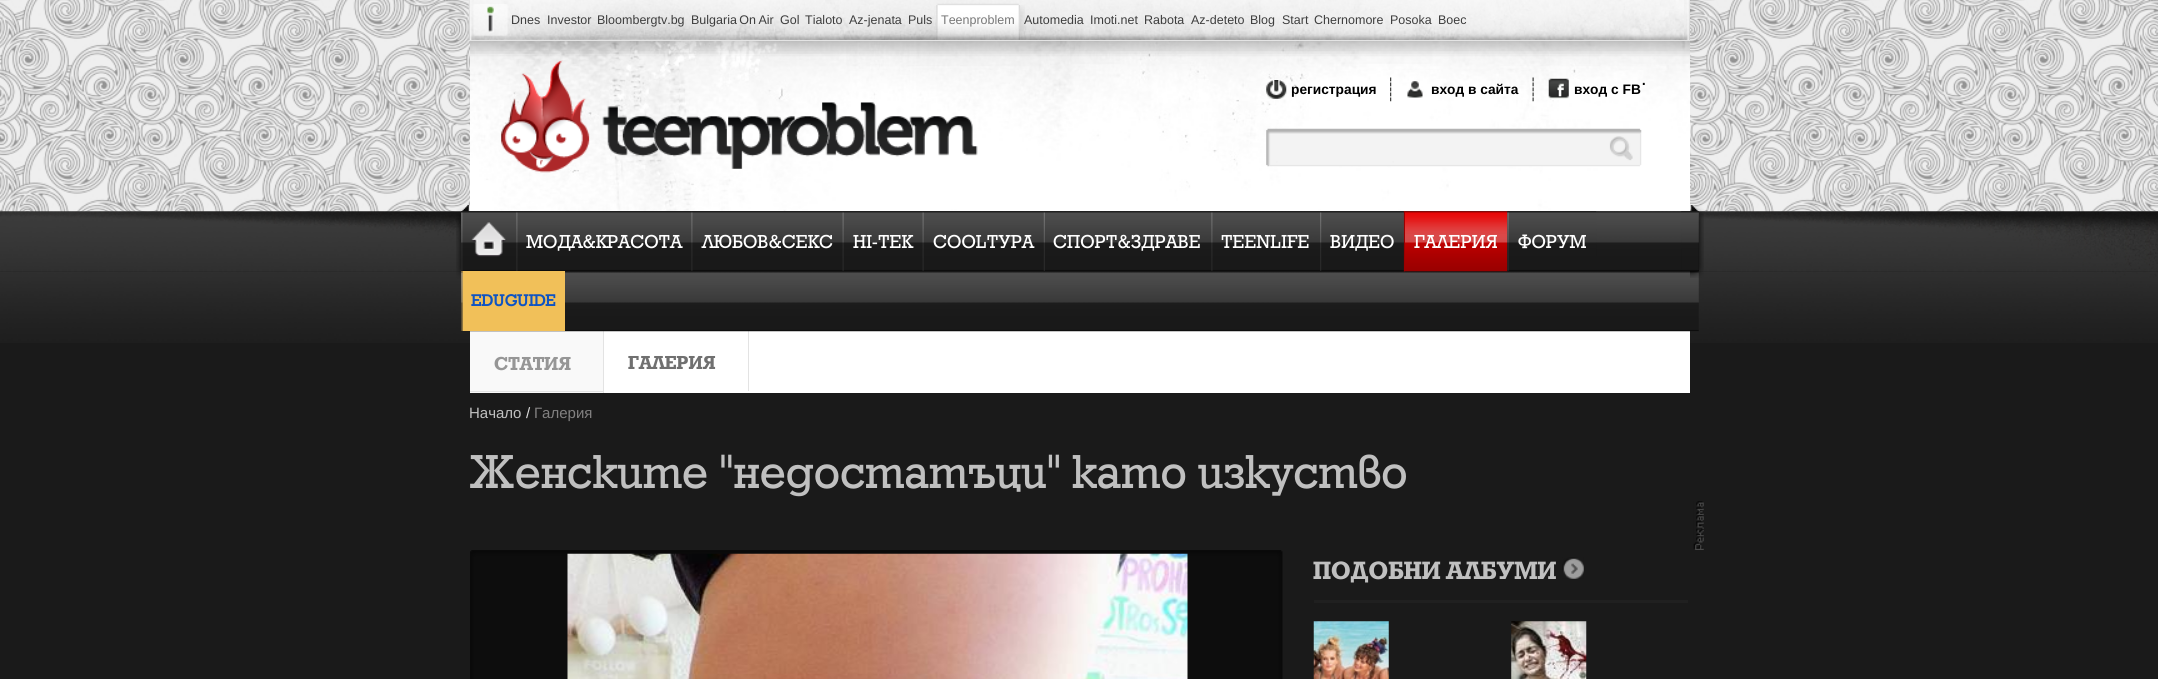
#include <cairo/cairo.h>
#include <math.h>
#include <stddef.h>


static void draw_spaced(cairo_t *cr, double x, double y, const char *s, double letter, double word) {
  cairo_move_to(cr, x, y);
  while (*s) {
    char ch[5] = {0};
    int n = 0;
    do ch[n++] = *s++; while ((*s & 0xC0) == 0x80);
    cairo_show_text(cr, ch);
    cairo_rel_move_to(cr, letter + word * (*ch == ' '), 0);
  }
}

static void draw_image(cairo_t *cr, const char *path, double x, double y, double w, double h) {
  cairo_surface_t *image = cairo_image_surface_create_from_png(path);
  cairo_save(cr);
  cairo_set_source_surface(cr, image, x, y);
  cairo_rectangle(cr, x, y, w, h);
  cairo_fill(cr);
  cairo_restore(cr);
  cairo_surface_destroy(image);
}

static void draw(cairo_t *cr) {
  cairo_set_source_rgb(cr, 1, 1, 1);
  cairo_paint(cr);
  draw_image(cr, "images/1.png", 0, 0, 2158, 212);
  draw_image(cr, "images/2.png", 468, 0, 1216, 40);
  draw_image(cr, "images/3.png", 473, 4, 35, 32);
  draw_image(cr, "images/4.png", 937, 3, 82, 37);
  draw_image(cr, "images/5.png", 936, 5, 2, 35);
  draw_image(cr, "images/6.png", 1018, 5, 2, 35);
  draw_image(cr, "images/7.png", 1020, 5, 5, 31);
  draw_image(cr, "images/8.png", 1684, 0, 6, 40);
  cairo_set_source_rgb(cr, 26 / 255.0, 26 / 255.0, 26 / 255.0);
  cairo_rectangle(cr, 0, 271, 2158, 408);
  cairo_fill(cr);
  draw_image(cr, "images/41.png", 0, 271, 2158, 72);
  draw_image(cr, "images/42.png", 0, 211, 2158, 61);
  draw_image(cr, "images/9.png", 470, 41, 1220, 171);
  cairo_set_source_rgb(cr, 228 / 255.0, 228 / 255.0, 228 / 255.0);
  cairo_rectangle(cr, 470, 40, 1220, 1);
  cairo_fill(cr);
  draw_image(cr, "images/10.png", 501, 60, 477, 113);
  draw_image(cr, "images/11.png", 1266, 80, 21, 19);
  draw_image(cr, "images/12.png", 1390, 77, 2, 25);
  draw_image(cr, "images/13.png", 1407, 81, 16, 17);
  draw_image(cr, "images/14.png", 1532, 77, 2, 25);
  draw_image(cr, "images/15.png", 1548, 78, 21, 22);
  draw_image(cr, "images/16.png", 1266, 128, 376, 39);
  cairo_set_source_rgb(cr, 1, 1, 1);
  cairo_rectangle(cr, 604, 331, 1086, 62);
  cairo_fill(cr);
  cairo_set_source_rgb(cr, 249 / 255.0, 249 / 255.0, 249 / 255.0);
  cairo_rectangle(cr, 470, 331, 133, 62);
  cairo_fill(cr);
  cairo_set_source_rgb(cr, 227 / 255.0, 227 / 255.0, 227 / 255.0);
  cairo_rectangle(cr, 603, 331, 1, 62);
  cairo_fill(cr);
  cairo_rectangle(cr, 748, 331, 1, 60);
  cairo_fill(cr);
  draw_image(cr, "images/21.png", 461, 211, 1238, 121);
  draw_image(cr, "images/17.png", 462, 205, 7, 7);
  draw_image(cr, "images/20.png", 1691, 205, 8, 7);
  draw_image(cr, "images/18.png", 1690, 205, 14, 73);
  draw_image(cr, "images/19.png", 456, 207, 13, 72);
  draw_image(cr, "images/22.png", 461, 211, 55, 60);
  draw_image(cr, "images/23.png", 461, 212, 2, 59);
  draw_image(cr, "images/24.png", 471, 222, 35, 35);
  draw_image(cr, "images/25.png", 516, 211, 175, 1);
  draw_image(cr, "images/26.png", 516, 212, 2, 59);
  draw_image(cr, "images/27.png", 691, 211, 152, 1);
  draw_image(cr, "images/26.png", 691, 212, 2, 59);
  draw_image(cr, "images/28.png", 842, 211, 81, 1);
  draw_image(cr, "images/29.png", 842, 212, 2, 59);
  draw_image(cr, "images/30.png", 922, 211, 122, 1);
  draw_image(cr, "images/29.png", 922, 212, 2, 59);
  cairo_set_source_rgba(cr, 28 / 255.0, 28 / 255.0, 28 / 255.0, 0.75);
  cairo_rectangle(cr, 1044, 211, 167, 1);
  cairo_fill(cr);
  draw_image(cr, "images/31.png", 1043, 212, 2, 59);
  draw_image(cr, "images/32.png", 1211, 211, 109, 1);
  draw_image(cr, "images/26.png", 1211, 212, 2, 59);
  draw_image(cr, "images/35.png", 1403, 211, 105, 61);
  draw_image(cr, "images/36.png", 1403, 211, 2, 61);
  draw_image(cr, "images/33.png", 1320, 211, 84, 61);
  draw_image(cr, "images/34.png", 1320, 212, 2, 59);
  draw_image(cr, "images/37.png", 1507, 211, 90, 60);
  draw_image(cr, "images/38.png", 1507, 211, 2, 60);
  cairo_set_source_rgb(cr, 241 / 255.0, 192 / 255.0, 89 / 255.0);
  cairo_rectangle(cr, 461, 271, 104, 60);
  cairo_fill(cr);
  draw_image(cr, "images/39.png", 461, 271, 2, 60);
  draw_image(cr, "images/40.png", 1681, 211, 18, 60);
  cairo_set_source_rgb(cr, 227 / 255.0, 227 / 255.0, 227 / 255.0);
  cairo_rectangle(cr, 470, 391, 134, 1);
  cairo_fill(cr);
  draw_image(cr, "images/43.png", 470, 550, 813, 129);
  draw_image(cr, "images/44.png", 567, 553, 621, 126);
  draw_image(cr, "images/45.png", 1693, 501, 11, 49);
  draw_image(cr, "images/46.png", 1562, 557, 22, 22);
  cairo_set_source_rgb(cr, 32 / 255.0, 32 / 255.0, 32 / 255.0);
  cairo_rectangle(cr, 1314, 600, 374, 3);
  cairo_fill(cr);
  draw_image(cr, "images/47.png", 1313, 621, 76, 58);
  draw_image(cr, "images/48.png", 1511, 621, 76, 58);
  cairo_select_font_face(cr, "Liberation Sans", CAIRO_FONT_SLANT_NORMAL, CAIRO_FONT_WEIGHT_NORMAL);
  cairo_set_font_size(cr, 12.5);
  cairo_set_source_rgb(cr, 61 / 255.0, 61 / 255.0, 61 / 255.0);
  cairo_move_to(cr, 511, 24);
  cairo_show_text(cr, "Dnes");
  cairo_move_to(cr, 547, 24);
  cairo_show_text(cr, "Investor");
  cairo_move_to(cr, 597, 24);
  cairo_show_text(cr, "Bloombergtv.bg");
  draw_spaced(cr, 691, 24, "Bulgaria On Air", 0, -1);
  cairo_move_to(cr, 780, 24);
  cairo_show_text(cr, "Gol");
  cairo_move_to(cr, 805, 24);
  cairo_show_text(cr, "Tialoto");
  cairo_move_to(cr, 849, 24);
  cairo_show_text(cr, "Az-jenata");
  cairo_move_to(cr, 908, 24);
  cairo_show_text(cr, "Puls");
  cairo_set_source_rgb(cr, 119 / 255.0, 119 / 255.0, 119 / 255.0);
  cairo_move_to(cr, 941, 24);
  cairo_show_text(cr, "Teenproblem");
  cairo_set_source_rgb(cr, 61 / 255.0, 61 / 255.0, 61 / 255.0);
  cairo_move_to(cr, 1024, 24);
  cairo_show_text(cr, "Automedia");
  cairo_move_to(cr, 1090, 24);
  cairo_show_text(cr, "Imoti.net");
  cairo_move_to(cr, 1144, 24);
  cairo_show_text(cr, "Rabota");
  cairo_move_to(cr, 1191, 24);
  cairo_show_text(cr, "Az-deteto");
  cairo_move_to(cr, 1250, 24);
  cairo_show_text(cr, "Blog");
  cairo_move_to(cr, 1282, 24);
  cairo_show_text(cr, "Start");
  cairo_move_to(cr, 1314, 24);
  cairo_show_text(cr, "Chernomore");
  cairo_move_to(cr, 1390, 24);
  cairo_show_text(cr, "Posoka");
  cairo_move_to(cr, 1438, 24);
  cairo_show_text(cr, "Boec");
  cairo_select_font_face(cr, "Liberation Sans", CAIRO_FONT_SLANT_NORMAL, CAIRO_FONT_WEIGHT_BOLD);
  cairo_set_font_size(cr, 13.75);
  cairo_set_source_rgb(cr, 0, 0, 0);
  cairo_move_to(cr, 1291, 94);
  cairo_show_text(cr, "регистрация");
  cairo_move_to(cr, 1431, 94);
  cairo_show_text(cr, "вход в сайта");
  cairo_move_to(cr, 1574, 94);
  cairo_show_text(cr, "вход с FB");
  cairo_select_font_face(cr, "Liberation Sans", CAIRO_FONT_SLANT_NORMAL, CAIRO_FONT_WEIGHT_NORMAL);
  cairo_set_font_size(cr, 20);
  cairo_move_to(cr, 1641, 85);
  cairo_show_text(cr, ".");
  cairo_select_font_face(cr, "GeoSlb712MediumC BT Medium", CAIRO_FONT_SLANT_NORMAL, CAIRO_FONT_WEIGHT_NORMAL);
  cairo_set_font_size(cr, 18.75);
  cairo_set_source_rgb(cr, 1, 1, 1);
  cairo_move_to(cr, 526, 248);
  cairo_show_text(cr, "МОДА&КРАСОТА");
  cairo_move_to(cr, 702, 248);
  cairo_show_text(cr, "ЛЮБОВ&СЕКС");
  cairo_move_to(cr, 853, 248);
  cairo_show_text(cr, "HI-TEK");
  cairo_move_to(cr, 933, 248);
  cairo_show_text(cr, "COOLТУРА");
  cairo_move_to(cr, 1053, 248);
  cairo_show_text(cr, "СПОРТ&ЗДРАВЕ");
  cairo_move_to(cr, 1221, 248);
  cairo_show_text(cr, "TEENLIFE");
  cairo_move_to(cr, 1330, 248);
  cairo_show_text(cr, "ВИДЕО");
  cairo_move_to(cr, 1414, 248);
  cairo_show_text(cr, "ГАЛЕРИЯ");
  cairo_move_to(cr, 1518, 248);
  cairo_show_text(cr, "ФОРУМ");
  cairo_select_font_face(cr, "GeoSlb712MediumC BT", CAIRO_FONT_SLANT_NORMAL, CAIRO_FONT_WEIGHT_BOLD);
  cairo_set_font_size(cr, 16.25);
  cairo_set_source_rgb(cr, 15 / 255.0, 84 / 255.0, 194 / 255.0);
  cairo_move_to(cr, 471, 306);
  cairo_show_text(cr, "EDUGUIDE");
  cairo_select_font_face(cr, "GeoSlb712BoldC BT", CAIRO_FONT_SLANT_NORMAL, CAIRO_FONT_WEIGHT_BOLD);
  cairo_set_font_size(cr, 18.75);
  cairo_set_source_rgb(cr, 150 / 255.0, 150 / 255.0, 150 / 255.0);
  cairo_move_to(cr, 494, 370);
  cairo_show_text(cr, "СТАТИЯ");
  cairo_set_source_rgb(cr, 112 / 255.0, 112 / 255.0, 112 / 255.0);
  cairo_move_to(cr, 628, 369);
  cairo_show_text(cr, "ГАЛЕРИЯ");
  cairo_select_font_face(cr, "Liberation Sans", CAIRO_FONT_SLANT_NORMAL, CAIRO_FONT_WEIGHT_NORMAL);
  cairo_set_font_size(cr, 15);
  cairo_set_source_rgb(cr, 192 / 255.0, 192 / 255.0, 192 / 255.0);
  cairo_move_to(cr, 469, 418);
  cairo_show_text(cr, "Начало");
  cairo_set_source_rgb(cr, 223 / 255.0, 223 / 255.0, 223 / 255.0);
  cairo_move_to(cr, 526, 418);
  cairo_show_text(cr, "/");
  cairo_set_source_rgb(cr, 130 / 255.0, 129 / 255.0, 129 / 255.0);
  cairo_move_to(cr, 534, 418);
  cairo_show_text(cr, "Галерия");
  cairo_select_font_face(cr, "GeoSlb712MediumC BT Medium", CAIRO_FONT_SLANT_NORMAL, CAIRO_FONT_WEIGHT_NORMAL);
  cairo_set_font_size(cr, 47.5);
  cairo_set_source_rgb(cr, 192 / 255.0, 192 / 255.0, 192 / 255.0);
  cairo_move_to(cr, 469, 488);
  cairo_show_text(cr, "Женските \"недостатъци\" като изкуство");
  cairo_select_font_face(cr, "GeoSlb712BoldC BT", CAIRO_FONT_SLANT_NORMAL, CAIRO_FONT_WEIGHT_BOLD);
  cairo_set_font_size(cr, 25);
  cairo_move_to(cr, 1313, 579);
  cairo_show_text(cr, "ПОДОБНИ АЛБУМИ");
}

int main(void) {
  cairo_surface_t *surface = cairo_image_surface_create(CAIRO_FORMAT_RGB24, 2158, 679);
  cairo_t *cr = cairo_create(surface);
  cairo_font_options_t *options = cairo_font_options_create();
  cairo_font_options_set_hint_metrics(options, CAIRO_HINT_METRICS_OFF);
  cairo_font_options_set_hint_style(options, CAIRO_HINT_STYLE_NONE);
  cairo_set_font_options(cr, options);
  cairo_set_miter_limit(cr, 4);
  draw(cr);
  cairo_surface_write_to_png(surface, "out.png");
  cairo_font_options_destroy(options);
  cairo_destroy(cr);
  cairo_surface_destroy(surface);
  return 0;
}
